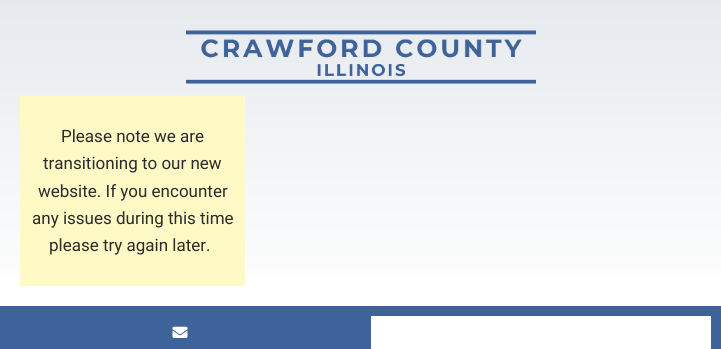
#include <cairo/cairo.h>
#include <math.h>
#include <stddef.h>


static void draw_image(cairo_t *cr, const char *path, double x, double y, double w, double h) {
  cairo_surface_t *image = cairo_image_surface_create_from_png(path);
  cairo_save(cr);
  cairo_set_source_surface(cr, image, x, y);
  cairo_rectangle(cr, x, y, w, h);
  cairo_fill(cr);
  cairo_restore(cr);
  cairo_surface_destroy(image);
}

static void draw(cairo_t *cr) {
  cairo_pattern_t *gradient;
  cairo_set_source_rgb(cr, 1, 1, 1);
  cairo_paint(cr);
  gradient = cairo_pattern_create_linear(361, 0, 361, 306);
  cairo_pattern_add_color_stop_rgba(gradient, 0, 230 / 255.0, 234 / 255.0, 238 / 255.0, 1);
  cairo_pattern_add_color_stop_rgba(gradient, 1, 1, 1, 1, 1);
  cairo_set_source(cr, gradient);
  cairo_pattern_destroy(gradient);
  cairo_rectangle(cr, 0, 0, 721, 275);
  cairo_fill(cr);
  draw_image(cr, "images/1.png", 186, 30, 350, 54);
  cairo_set_source_rgb(cr, 1, 249 / 255.0, 197 / 255.0);
  cairo_rectangle(cr, 20, 96, 225, 190);
  cairo_fill(cr);
  cairo_set_source_rgb(cr, 62 / 255.0, 99 / 255.0, 155 / 255.0);
  cairo_rectangle(cr, 0, 306, 721, 43);
  cairo_fill(cr);
  draw_image(cr, "images/2.png", 172, 326, 16, 12);
  cairo_set_source_rgb(cr, 1, 1, 1);
  cairo_rectangle(cr, 371, 316, 340, 33);
  cairo_fill(cr);
  cairo_select_font_face(cr, "Roboto", CAIRO_FONT_SLANT_NORMAL, CAIRO_FONT_WEIGHT_NORMAL);
  cairo_set_font_size(cr, 17);
  cairo_set_source_rgb(cr, 43 / 255.0, 43 / 255.0, 43 / 255.0);
  cairo_move_to(cr, 61, 142);
  cairo_show_text(cr, "Please note we are");
  cairo_move_to(cr, 43, 169);
  cairo_show_text(cr, "transitioning to our new");
  cairo_move_to(cr, 38, 197);
  cairo_show_text(cr, "website. If you encounter");
  cairo_move_to(cr, 32, 224);
  cairo_show_text(cr, "any issues during this time");
  cairo_move_to(cr, 49, 251);
  cairo_show_text(cr, "please try again later.");
}

int main(void) {
  cairo_surface_t *surface = cairo_image_surface_create(CAIRO_FORMAT_RGB24, 721, 349);
  cairo_t *cr = cairo_create(surface);
  cairo_font_options_t *options = cairo_font_options_create();
  cairo_font_options_set_hint_metrics(options, CAIRO_HINT_METRICS_OFF);
  cairo_font_options_set_hint_style(options, CAIRO_HINT_STYLE_NONE);
  cairo_set_font_options(cr, options);
  cairo_set_miter_limit(cr, 4);
  draw(cr);
  cairo_surface_write_to_png(surface, "out.png");
  cairo_font_options_destroy(options);
  cairo_destroy(cr);
  cairo_surface_destroy(surface);
  return 0;
}
